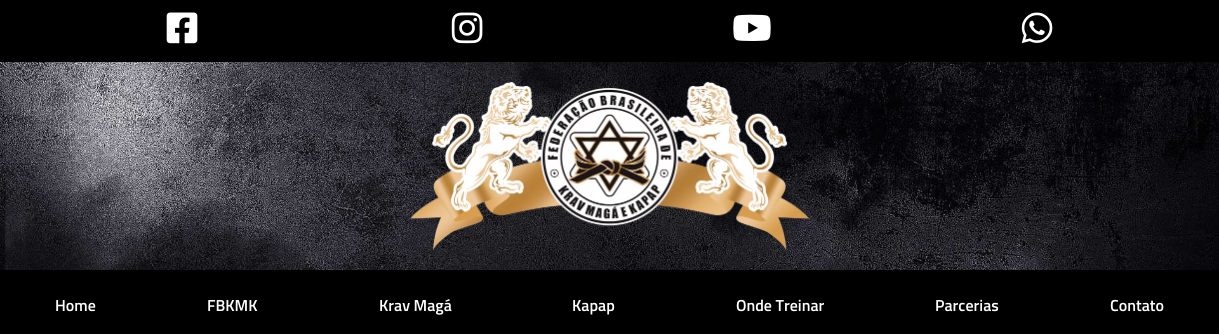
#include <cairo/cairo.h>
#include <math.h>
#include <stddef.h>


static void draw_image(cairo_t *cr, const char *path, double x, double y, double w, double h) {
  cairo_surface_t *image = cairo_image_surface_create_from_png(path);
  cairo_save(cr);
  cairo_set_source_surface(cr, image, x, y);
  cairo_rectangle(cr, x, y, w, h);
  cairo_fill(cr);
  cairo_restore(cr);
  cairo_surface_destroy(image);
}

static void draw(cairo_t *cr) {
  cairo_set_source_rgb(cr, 0, 0, 0);
  cairo_paint(cr);
  draw_image(cr, "images/1.png", 166, 12, 32, 32);
  draw_image(cr, "images/2.png", 451, 12, 32, 32);
  draw_image(cr, "images/3.png", 733, 14, 38, 27);
  draw_image(cr, "images/4.png", 1021, 12, 32, 32);
  draw_image(cr, "images/5.png", 0, 62, 1219, 208);
  draw_image(cr, "images/6.png", 410, 82, 399, 168);
  cairo_select_font_face(cr, "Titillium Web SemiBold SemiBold", CAIRO_FONT_SLANT_NORMAL, CAIRO_FONT_WEIGHT_NORMAL);
  cairo_set_font_size(cr, 16);
  cairo_set_source_rgb(cr, 1, 1, 1);
  cairo_move_to(cr, 55, 311);
  cairo_show_text(cr, "Home");
  cairo_move_to(cr, 207, 311);
  cairo_show_text(cr, "FBKMK");
  cairo_move_to(cr, 379, 311);
  cairo_show_text(cr, "Krav Magá");
  cairo_move_to(cr, 572, 311);
  cairo_show_text(cr, "Kapap");
  cairo_move_to(cr, 736, 311);
  cairo_show_text(cr, "Onde Treinar");
  cairo_move_to(cr, 935, 311);
  cairo_show_text(cr, "Parcerias");
  cairo_move_to(cr, 1110, 311);
  cairo_show_text(cr, "Contato");
}

int main(void) {
  cairo_surface_t *surface = cairo_image_surface_create(CAIRO_FORMAT_RGB24, 1219, 334);
  cairo_t *cr = cairo_create(surface);
  cairo_font_options_t *options = cairo_font_options_create();
  cairo_font_options_set_hint_metrics(options, CAIRO_HINT_METRICS_OFF);
  cairo_font_options_set_hint_style(options, CAIRO_HINT_STYLE_NONE);
  cairo_set_font_options(cr, options);
  cairo_set_miter_limit(cr, 4);
  draw(cr);
  cairo_surface_write_to_png(surface, "out.png");
  cairo_font_options_destroy(options);
  cairo_destroy(cr);
  cairo_surface_destroy(surface);
  return 0;
}
